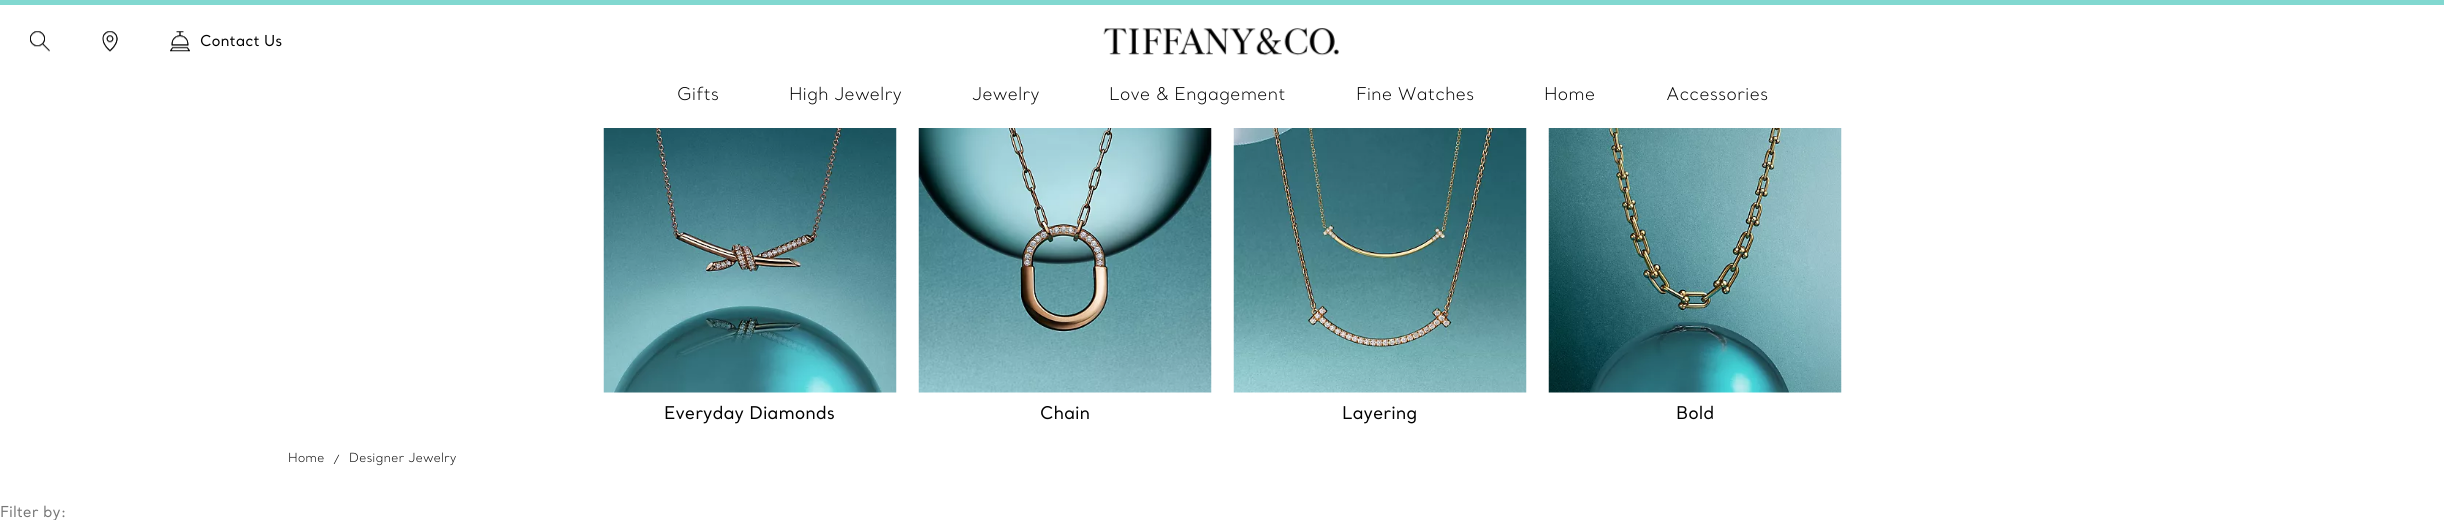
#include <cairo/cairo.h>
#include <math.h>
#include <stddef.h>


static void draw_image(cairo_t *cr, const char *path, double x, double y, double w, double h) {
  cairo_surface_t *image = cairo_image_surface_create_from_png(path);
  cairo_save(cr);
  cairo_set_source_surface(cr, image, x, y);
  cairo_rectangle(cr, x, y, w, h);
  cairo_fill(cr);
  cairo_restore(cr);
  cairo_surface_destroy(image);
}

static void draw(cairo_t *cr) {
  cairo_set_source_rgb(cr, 1, 1, 1);
  cairo_paint(cr);
  cairo_set_source_rgb(cr, 129 / 255.0, 216 / 255.0, 208 / 255.0);
  cairo_rectangle(cr, 0, 0, 2444, 5);
  cairo_fill(cr);
  draw_image(cr, "images/1.png", 30, 31, 20, 21);
  draw_image(cr, "images/2.png", 102, 31, 16, 21);
  draw_image(cr, "images/3.png", 170, 31, 20, 21);
  draw_image(cr, "images/4.png", 1103, 27, 236, 29);
  draw_image(cr, "images/5.png", 603, 128, 294, 265);
  draw_image(cr, "images/6.png", 918, 128, 294, 265);
  draw_image(cr, "images/7.png", 1233, 128, 294, 265);
  draw_image(cr, "images/8.png", 1548, 128, 294, 265);
  cairo_select_font_face(cr, "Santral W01", CAIRO_FONT_SLANT_NORMAL, CAIRO_FONT_WEIGHT_NORMAL);
  cairo_set_font_size(cr, 15);
  cairo_set_source_rgb(cr, 0, 0, 0);
  cairo_move_to(cr, 200, 46);
  cairo_show_text(cr, "Contact Us");
  cairo_select_font_face(cr, "Santral W01 Light", CAIRO_FONT_SLANT_NORMAL, CAIRO_FONT_WEIGHT_NORMAL);
  cairo_set_font_size(cr, 17.5);
  cairo_move_to(cr, 677, 100);
  cairo_show_text(cr, "Gifts");
  cairo_move_to(cr, 789, 100);
  cairo_show_text(cr, "High Jewelry");
  cairo_move_to(cr, 972, 100);
  cairo_show_text(cr, "Jewelry");
  cairo_move_to(cr, 1109, 100);
  cairo_show_text(cr, "Love & Engagement");
  cairo_move_to(cr, 1356, 100);
  cairo_show_text(cr, "Fine Watches");
  cairo_move_to(cr, 1544, 100);
  cairo_show_text(cr, "Home");
  cairo_move_to(cr, 1666, 100);
  cairo_show_text(cr, "Accessories");
  cairo_select_font_face(cr, "Santral W01", CAIRO_FONT_SLANT_NORMAL, CAIRO_FONT_WEIGHT_NORMAL);
  cairo_move_to(cr, 664, 419);
  cairo_show_text(cr, "Everyday Diamonds");
  cairo_move_to(cr, 1040, 419);
  cairo_show_text(cr, "Chain");
  cairo_move_to(cr, 1342, 419);
  cairo_show_text(cr, "Layering");
  cairo_move_to(cr, 1676, 419);
  cairo_show_text(cr, "Bold");
  cairo_select_font_face(cr, "Santral W01 Light", CAIRO_FONT_SLANT_NORMAL, CAIRO_FONT_WEIGHT_NORMAL);
  cairo_set_font_size(cr, 12.5);
  cairo_move_to(cr, 288, 462);
  cairo_show_text(cr, "Home");
  cairo_move_to(cr, 333, 464);
  cairo_show_text(cr, "/");
  cairo_move_to(cr, 349, 462);
  cairo_show_text(cr, "Designer Jewelry");
  cairo_select_font_face(cr, "Santral W01", CAIRO_FONT_SLANT_NORMAL, CAIRO_FONT_WEIGHT_NORMAL);
  cairo_set_font_size(cr, 15);
  cairo_set_source_rgb(cr, 118 / 255.0, 118 / 255.0, 118 / 255.0);
  cairo_move_to(cr, 0, 517);
  cairo_show_text(cr, "Filter by:");
}

int main(void) {
  cairo_surface_t *surface = cairo_image_surface_create(CAIRO_FORMAT_RGB24, 2444, 520);
  cairo_t *cr = cairo_create(surface);
  cairo_font_options_t *options = cairo_font_options_create();
  cairo_font_options_set_hint_metrics(options, CAIRO_HINT_METRICS_OFF);
  cairo_font_options_set_hint_style(options, CAIRO_HINT_STYLE_NONE);
  cairo_set_font_options(cr, options);
  cairo_set_miter_limit(cr, 4);
  draw(cr);
  cairo_surface_write_to_png(surface, "out.png");
  cairo_font_options_destroy(options);
  cairo_destroy(cr);
  cairo_surface_destroy(surface);
  return 0;
}
